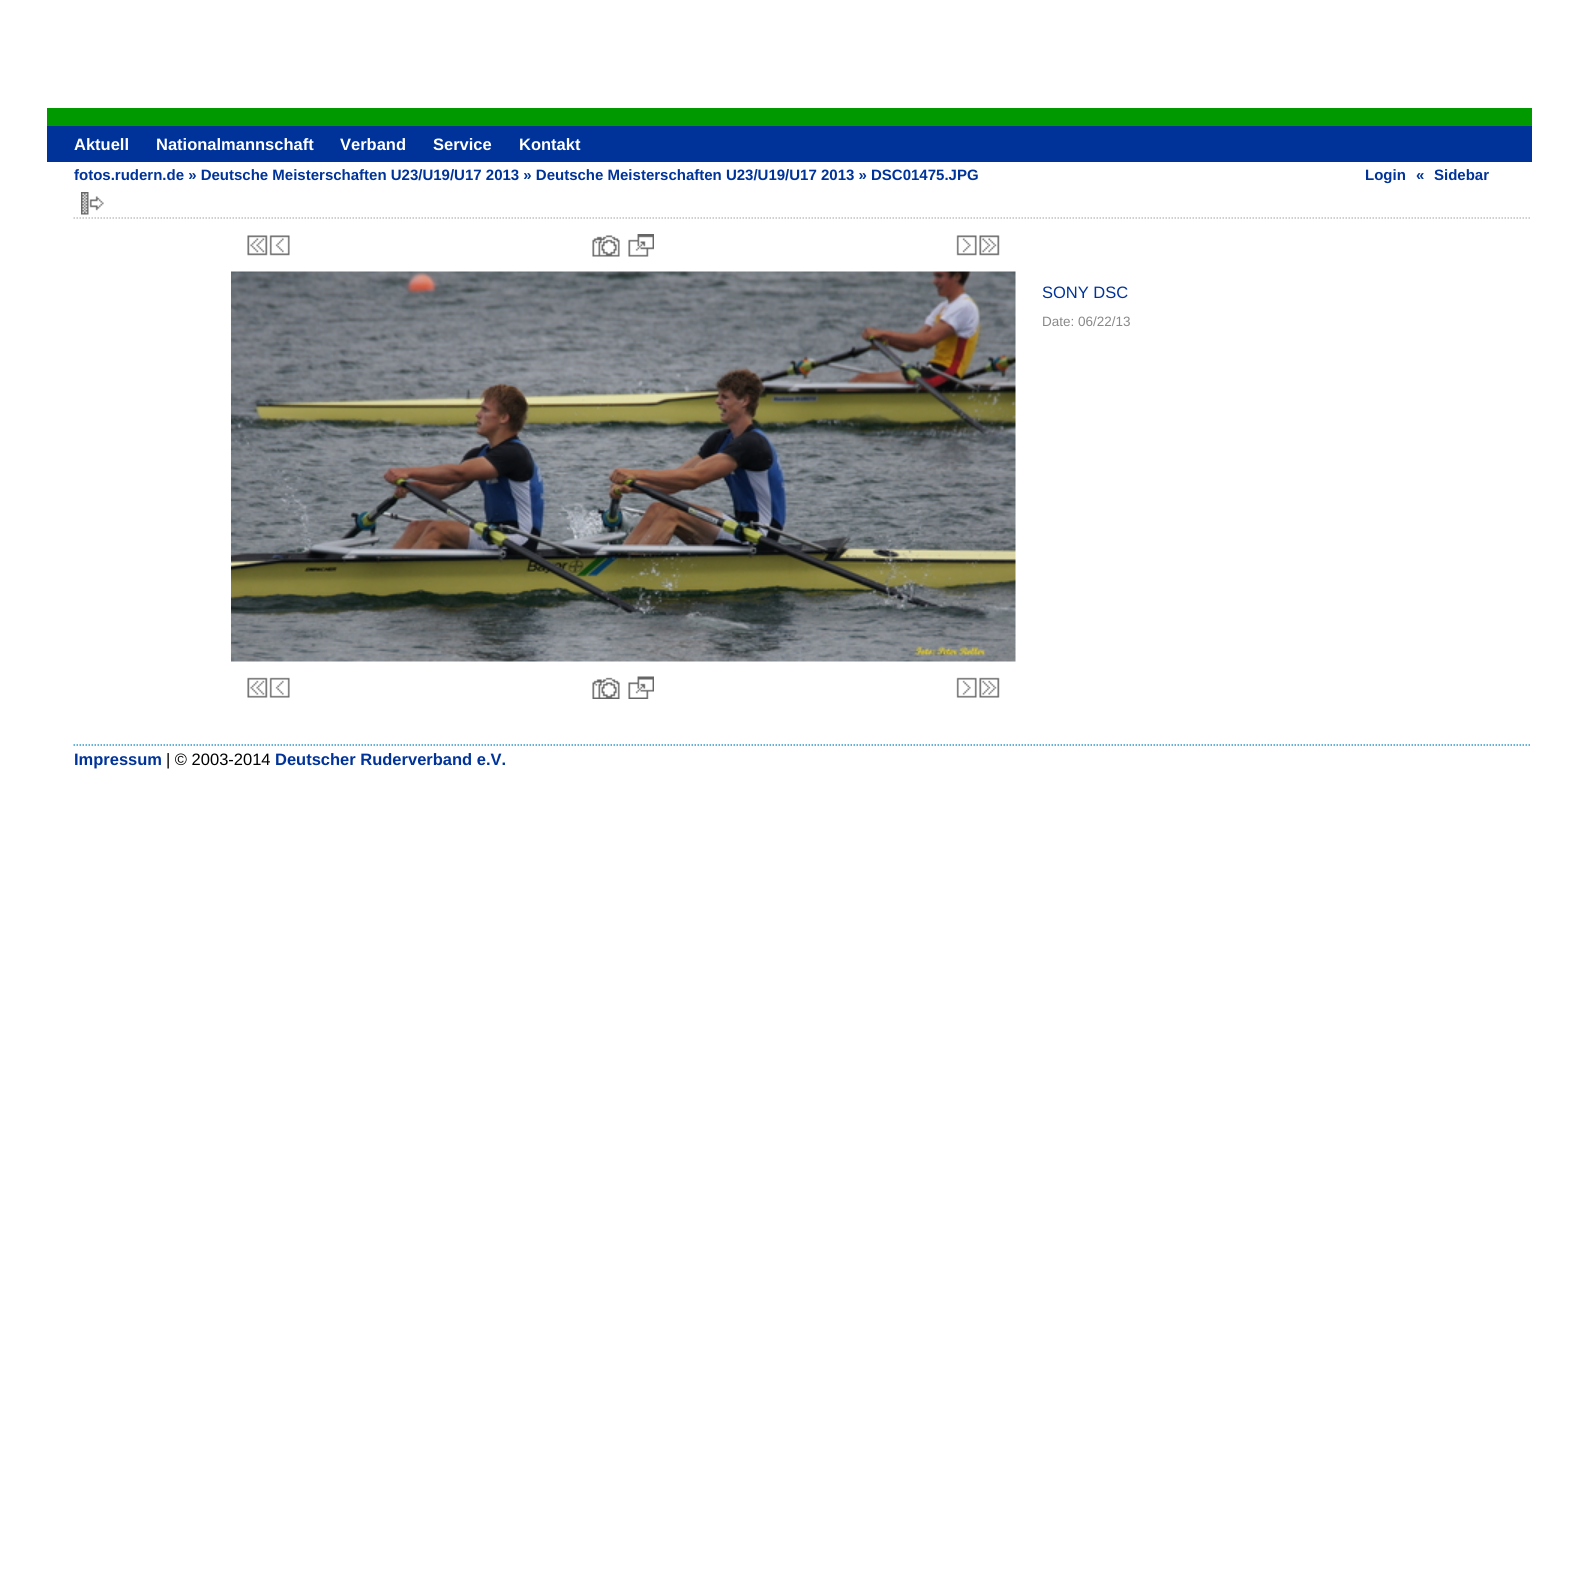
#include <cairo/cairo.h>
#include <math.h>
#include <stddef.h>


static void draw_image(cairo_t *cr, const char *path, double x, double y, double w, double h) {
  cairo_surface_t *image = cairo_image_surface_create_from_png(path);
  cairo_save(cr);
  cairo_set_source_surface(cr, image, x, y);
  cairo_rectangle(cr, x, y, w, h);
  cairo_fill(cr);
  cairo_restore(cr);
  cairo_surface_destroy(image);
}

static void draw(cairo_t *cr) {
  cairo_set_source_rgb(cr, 1, 1, 1);
  cairo_paint(cr);
  cairo_set_source_rgb(cr, 0, 51 / 255.0, 153 / 255.0);
  cairo_rectangle(cr, 47, 126, 1485, 36);
  cairo_fill(cr);
  cairo_set_source_rgb(cr, 0, 153 / 255.0, 0);
  cairo_rectangle(cr, 47, 108, 1485, 18);
  cairo_fill(cr);
  cairo_new_path(cr);
  cairo_move_to(cr, 73.5, 218);
  cairo_line_to(cr, 1531.5, 218);
  cairo_set_source_rgb(cr, 192 / 255.0, 192 / 255.0, 192 / 255.0);
  cairo_set_line_width(cr, 1.5);
  cairo_set_dash(cr, (double[]){1.5, 1.5}, 2, 0);
  cairo_stroke(cr);
  draw_image(cr, "images/1.png", 81, 192, 23, 23);
  draw_image(cr, "images/2.png", 247, 235, 21, 21);
  draw_image(cr, "images/3.png", 269, 235, 21, 21);
  draw_image(cr, "images/4.png", 592, 235, 28, 22);
  draw_image(cr, "images/5.png", 628, 234, 26, 23);
  draw_image(cr, "images/6.png", 956, 235, 21, 21);
  draw_image(cr, "images/7.png", 979, 235, 21, 21);
  draw_image(cr, "images/8.png", 231, 271, 785, 391);
  draw_image(cr, "images/9.png", 247, 677, 21, 21);
  draw_image(cr, "images/10.png", 269, 677, 21, 21);
  draw_image(cr, "images/11.png", 592, 677, 28, 22);
  draw_image(cr, "images/12.png", 628, 676, 26, 23);
  draw_image(cr, "images/13.png", 956, 677, 21, 21);
  draw_image(cr, "images/14.png", 979, 677, 21, 21);
  cairo_new_path(cr);
  cairo_move_to(cr, 73.5, 745);
  cairo_line_to(cr, 1531.5, 745);
  cairo_set_source_rgb(cr, 51 / 255.0, 153 / 255.0, 204 / 255.0);
  cairo_stroke(cr);
  cairo_select_font_face(cr, "Liberation Sans", CAIRO_FONT_SLANT_NORMAL, CAIRO_FONT_WEIGHT_BOLD);
  cairo_set_font_size(cr, 16.5);
  cairo_set_source_rgb(cr, 1, 1, 1);
  cairo_move_to(cr, 74, 150);
  cairo_show_text(cr, "Aktuell");
  cairo_move_to(cr, 156, 150);
  cairo_show_text(cr, "Nationalmannschaft");
  cairo_move_to(cr, 340, 150);
  cairo_show_text(cr, "Verband");
  cairo_move_to(cr, 433, 150);
  cairo_show_text(cr, "Service");
  cairo_move_to(cr, 519, 150);
  cairo_show_text(cr, "Kontakt");
  cairo_set_font_size(cr, 15);
  cairo_set_source_rgb(cr, 0, 51 / 255.0, 153 / 255.0);
  cairo_move_to(cr, 74, 180);
  cairo_show_text(cr, "fotos.rudern.de » Deutsche Meisterschaften U23/U19/U17 2013 » Deutsche Meisterschaften U23/U19/U17 2013 » DSC01475.JPG");
  cairo_move_to(cr, 1365, 180);
  cairo_show_text(cr, "Login");
  cairo_move_to(cr, 1416, 180);
  cairo_show_text(cr, "«");
  cairo_move_to(cr, 1434, 180);
  cairo_show_text(cr, "Sidebar");
  cairo_select_font_face(cr, "Liberation Sans", CAIRO_FONT_SLANT_NORMAL, CAIRO_FONT_WEIGHT_NORMAL);
  cairo_set_font_size(cr, 16.5);
  cairo_move_to(cr, 1042, 298);
  cairo_show_text(cr, "SONY DSC");
  cairo_set_font_size(cr, 13.5);
  cairo_set_source_rgb(cr, 136 / 255.0, 136 / 255.0, 136 / 255.0);
  cairo_move_to(cr, 1042, 326);
  cairo_show_text(cr, "Date: 06/22/13");
  cairo_select_font_face(cr, "Liberation Sans", CAIRO_FONT_SLANT_NORMAL, CAIRO_FONT_WEIGHT_BOLD);
  cairo_set_font_size(cr, 16.5);
  cairo_set_source_rgb(cr, 0, 51 / 255.0, 153 / 255.0);
  cairo_move_to(cr, 74, 765);
  cairo_show_text(cr, "Impressum");
  cairo_select_font_face(cr, "Liberation Sans", CAIRO_FONT_SLANT_NORMAL, CAIRO_FONT_WEIGHT_NORMAL);
  cairo_set_source_rgb(cr, 0, 0, 0);
  cairo_move_to(cr, 166, 765);
  cairo_show_text(cr, "| © 2003-2014");
  cairo_select_font_face(cr, "Liberation Sans", CAIRO_FONT_SLANT_NORMAL, CAIRO_FONT_WEIGHT_BOLD);
  cairo_set_source_rgb(cr, 0, 51 / 255.0, 153 / 255.0);
  cairo_move_to(cr, 275, 765);
  cairo_show_text(cr, "Deutscher Ruderverband e.V.");
}

int main(void) {
  cairo_surface_t *surface = cairo_image_surface_create(CAIRO_FORMAT_RGB24, 1577, 1577);
  cairo_t *cr = cairo_create(surface);
  cairo_font_options_t *options = cairo_font_options_create();
  cairo_font_options_set_hint_metrics(options, CAIRO_HINT_METRICS_OFF);
  cairo_font_options_set_hint_style(options, CAIRO_HINT_STYLE_NONE);
  cairo_set_font_options(cr, options);
  cairo_set_miter_limit(cr, 4);
  draw(cr);
  cairo_surface_write_to_png(surface, "out.png");
  cairo_font_options_destroy(options);
  cairo_destroy(cr);
  cairo_surface_destroy(surface);
  return 0;
}
